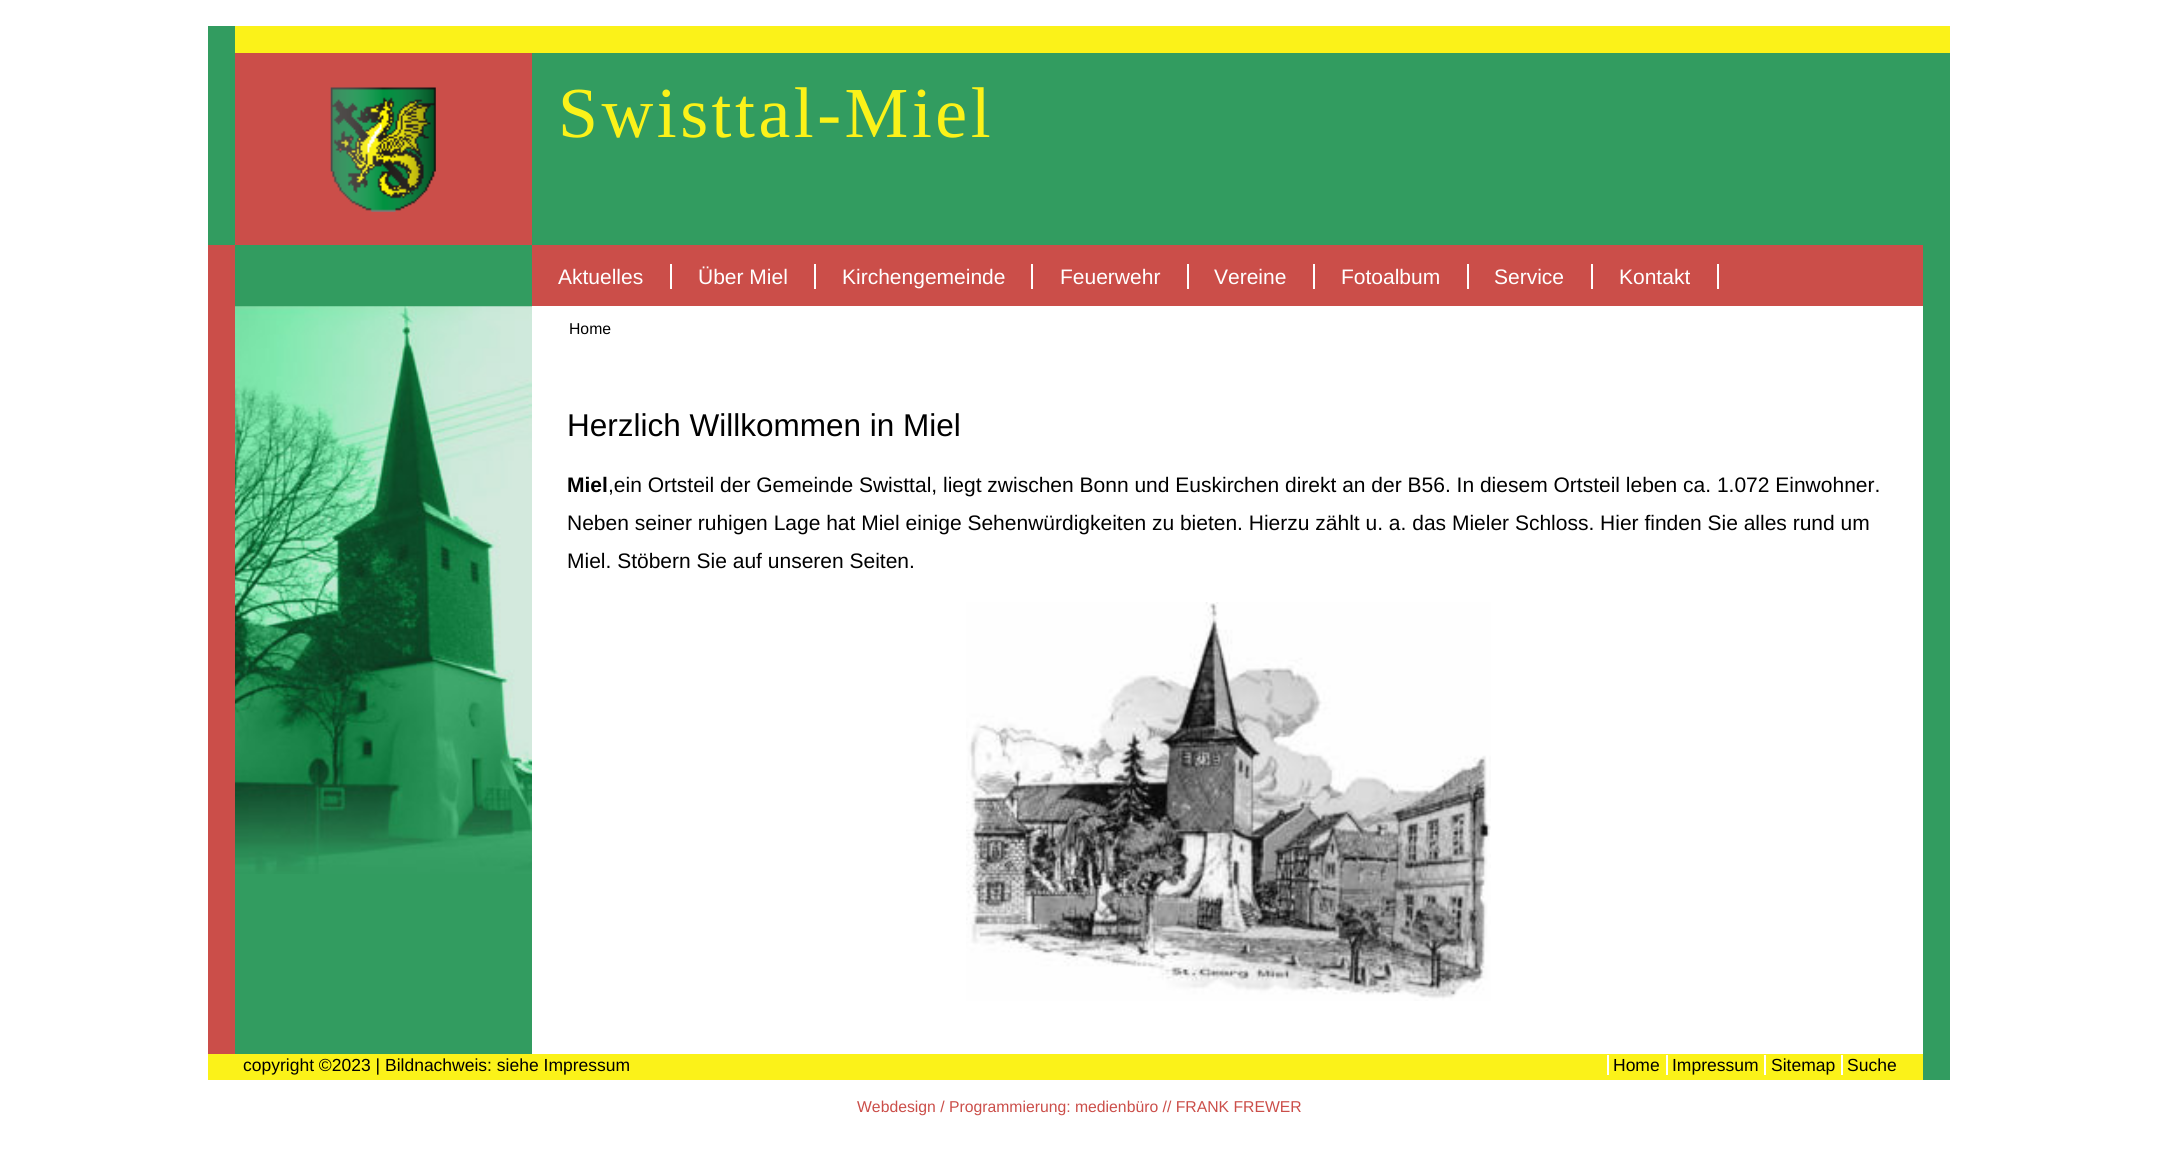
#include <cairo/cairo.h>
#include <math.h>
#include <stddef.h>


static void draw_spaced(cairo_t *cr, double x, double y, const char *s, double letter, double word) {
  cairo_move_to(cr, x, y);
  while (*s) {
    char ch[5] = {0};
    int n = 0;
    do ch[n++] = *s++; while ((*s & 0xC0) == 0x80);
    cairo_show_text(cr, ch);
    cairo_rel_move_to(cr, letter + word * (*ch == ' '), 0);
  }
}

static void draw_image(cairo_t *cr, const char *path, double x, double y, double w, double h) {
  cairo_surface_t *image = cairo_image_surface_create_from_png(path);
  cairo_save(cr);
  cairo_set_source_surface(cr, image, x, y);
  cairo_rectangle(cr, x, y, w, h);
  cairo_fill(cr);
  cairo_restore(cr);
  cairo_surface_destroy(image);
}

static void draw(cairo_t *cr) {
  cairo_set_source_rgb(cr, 1, 1, 1);
  cairo_paint(cr);
  cairo_set_source_rgb(cr, 50 / 255.0, 156 / 255.0, 96 / 255.0);
  cairo_rectangle(cr, 208, 26, 1742, 219);
  cairo_fill(cr);
  cairo_set_source_rgb(cr, 251 / 255.0, 242 / 255.0, 25 / 255.0);
  cairo_rectangle(cr, 235, 26, 1715, 27);
  cairo_fill(cr);
  cairo_set_source_rgb(cr, 203 / 255.0, 78 / 255.0, 73 / 255.0);
  cairo_rectangle(cr, 235, 53, 297, 192);
  cairo_fill(cr);
  draw_image(cr, "images/1.png", 330, 87, 106, 125);
  cairo_set_source_rgb(cr, 50 / 255.0, 156 / 255.0, 96 / 255.0);
  cairo_rectangle(cr, 235, 306, 1715, 748);
  cairo_fill(cr);
  draw_image(cr, "images/2.png", 235, 306, 297, 568);
  cairo_set_source_rgb(cr, 203 / 255.0, 78 / 255.0, 73 / 255.0);
  cairo_rectangle(cr, 208, 245, 27, 809);
  cairo_fill(cr);
  cairo_rectangle(cr, 532, 245, 1391, 61);
  cairo_fill(cr);
  cairo_set_source_rgb(cr, 50 / 255.0, 156 / 255.0, 96 / 255.0);
  cairo_rectangle(cr, 1923, 245, 27, 61);
  cairo_fill(cr);
  cairo_rectangle(cr, 235, 245, 297, 61);
  cairo_fill(cr);
  cairo_set_source_rgb(cr, 1, 1, 1);
  cairo_rectangle(cr, 670, 264, 2, 25);
  cairo_fill(cr);
  cairo_rectangle(cr, 814, 264, 2, 25);
  cairo_fill(cr);
  cairo_rectangle(cr, 1031, 264, 2, 25);
  cairo_fill(cr);
  cairo_rectangle(cr, 1187, 264, 2, 25);
  cairo_fill(cr);
  cairo_rectangle(cr, 1313, 264, 2, 25);
  cairo_fill(cr);
  cairo_rectangle(cr, 1467, 264, 2, 25);
  cairo_fill(cr);
  cairo_rectangle(cr, 1591, 264, 2, 25);
  cairo_fill(cr);
  cairo_rectangle(cr, 1717, 264, 2, 25);
  cairo_fill(cr);
  cairo_rectangle(cr, 532, 306, 1391, 748);
  cairo_fill(cr);
  draw_image(cr, "images/3.png", 966, 602, 525, 399);
  cairo_set_source_rgb(cr, 251 / 255.0, 242 / 255.0, 25 / 255.0);
  cairo_rectangle(cr, 208, 1054, 1715, 26);
  cairo_fill(cr);
  cairo_set_source_rgb(cr, 50 / 255.0, 156 / 255.0, 96 / 255.0);
  cairo_rectangle(cr, 1923, 1054, 27, 26);
  cairo_fill(cr);
  cairo_set_source_rgb(cr, 1, 1, 1);
  cairo_rectangle(cr, 1607, 1055, 2, 20);
  cairo_fill(cr);
  cairo_rectangle(cr, 1666, 1055, 2, 20);
  cairo_fill(cr);
  cairo_rectangle(cr, 1764, 1055, 2, 20);
  cairo_fill(cr);
  cairo_rectangle(cr, 1841, 1055, 2, 20);
  cairo_fill(cr);
  cairo_select_font_face(cr, "Liberation Serif", CAIRO_FONT_SLANT_NORMAL, CAIRO_FONT_WEIGHT_NORMAL);
  cairo_set_font_size(cr, 71.75);
  cairo_set_source_rgb(cr, 251 / 255.0, 242 / 255.0, 25 / 255.0);
  draw_spaced(cr, 558, 137, "Swisttal-Miel", 3.5, 0);
  cairo_select_font_face(cr, "Liberation Sans", CAIRO_FONT_SLANT_NORMAL, CAIRO_FONT_WEIGHT_NORMAL);
  cairo_set_font_size(cr, 21);
  cairo_set_source_rgb(cr, 1, 1, 1);
  cairo_move_to(cr, 558, 284);
  cairo_show_text(cr, "Aktuelles");
  cairo_move_to(cr, 698, 284);
  cairo_show_text(cr, "Über Miel");
  cairo_move_to(cr, 842, 284);
  cairo_show_text(cr, "Kirchengemeinde");
  cairo_move_to(cr, 1060, 284);
  cairo_show_text(cr, "Feuerwehr");
  cairo_move_to(cr, 1214, 284);
  cairo_show_text(cr, "Vereine");
  cairo_move_to(cr, 1341, 284);
  cairo_show_text(cr, "Fotoalbum");
  cairo_move_to(cr, 1494, 284);
  cairo_show_text(cr, "Service");
  cairo_move_to(cr, 1619, 284);
  cairo_show_text(cr, "Kontakt");
  cairo_set_font_size(cr, 15.75);
  cairo_set_source_rgb(cr, 0, 0, 0);
  cairo_move_to(cr, 569, 334);
  cairo_show_text(cr, "Home");
  cairo_set_font_size(cr, 31.5);
  cairo_move_to(cr, 567, 436);
  cairo_show_text(cr, "Herzlich Willkommen in Miel");
  cairo_select_font_face(cr, "Liberation Sans", CAIRO_FONT_SLANT_NORMAL, CAIRO_FONT_WEIGHT_BOLD);
  cairo_set_font_size(cr, 21);
  cairo_move_to(cr, 567, 492);
  cairo_show_text(cr, "Miel");
  cairo_select_font_face(cr, "Liberation Sans", CAIRO_FONT_SLANT_NORMAL, CAIRO_FONT_WEIGHT_NORMAL);
  cairo_move_to(cr, 608, 492);
  cairo_show_text(cr, ",ein Ortsteil der Gemeinde Swisttal, liegt zwischen Bonn und Euskirchen direkt an der B56. In diesem Ortsteil leben ca. 1.072 Einwohner.");
  cairo_move_to(cr, 567, 530);
  cairo_show_text(cr, "Neben seiner ruhigen Lage hat Miel einige Sehenwürdigkeiten zu bieten. Hierzu zählt u. a. das Mieler Schloss. Hier finden Sie alles rund um");
  cairo_move_to(cr, 567, 568);
  cairo_show_text(cr, "Miel. Stöbern Sie auf unseren Seiten.");
  cairo_set_font_size(cr, 17.5);
  cairo_move_to(cr, 243, 1071);
  cairo_show_text(cr, "copyright ©2023 | Bildnachweis: siehe Impressum");
  cairo_move_to(cr, 1613, 1071);
  cairo_show_text(cr, "Home");
  cairo_move_to(cr, 1672, 1071);
  cairo_show_text(cr, "Impressum");
  cairo_move_to(cr, 1771, 1071);
  cairo_show_text(cr, "Sitemap");
  cairo_move_to(cr, 1847, 1071);
  cairo_show_text(cr, "Suche");
  cairo_set_font_size(cr, 15.75);
  cairo_set_source_rgb(cr, 203 / 255.0, 78 / 255.0, 73 / 255.0);
  cairo_move_to(cr, 857, 1112);
  cairo_show_text(cr, "Webdesign / Programmierung: medienbüro // FRANK FREWER");
}

int main(void) {
  cairo_surface_t *surface = cairo_image_surface_create(CAIRO_FORMAT_RGB24, 2157, 1158);
  cairo_t *cr = cairo_create(surface);
  cairo_font_options_t *options = cairo_font_options_create();
  cairo_font_options_set_hint_metrics(options, CAIRO_HINT_METRICS_OFF);
  cairo_font_options_set_hint_style(options, CAIRO_HINT_STYLE_NONE);
  cairo_set_font_options(cr, options);
  cairo_set_miter_limit(cr, 4);
  draw(cr);
  cairo_surface_write_to_png(surface, "out.png");
  cairo_font_options_destroy(options);
  cairo_destroy(cr);
  cairo_surface_destroy(surface);
  return 0;
}
